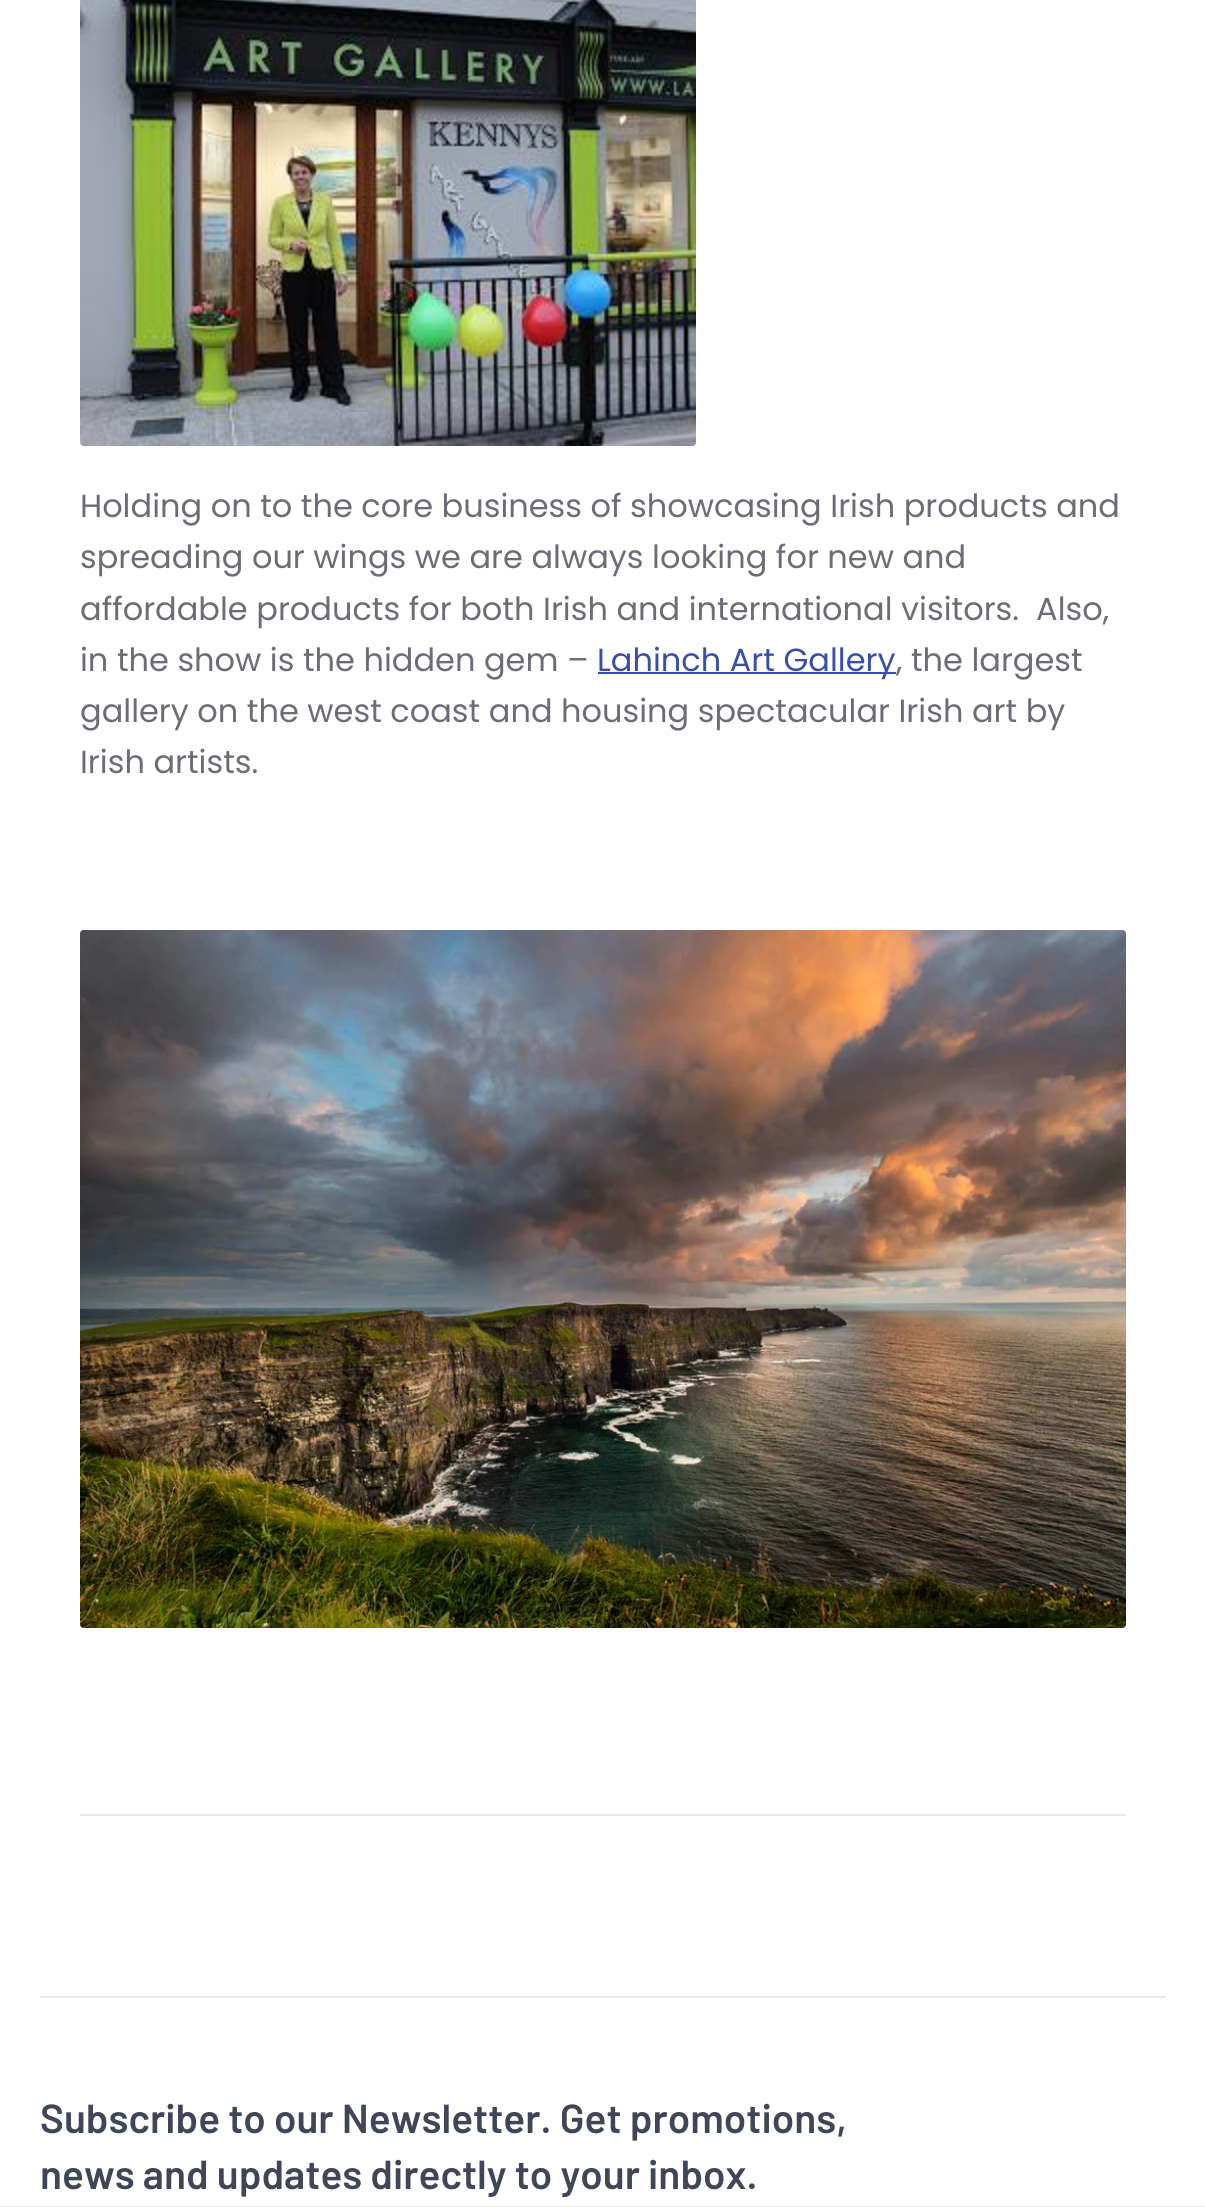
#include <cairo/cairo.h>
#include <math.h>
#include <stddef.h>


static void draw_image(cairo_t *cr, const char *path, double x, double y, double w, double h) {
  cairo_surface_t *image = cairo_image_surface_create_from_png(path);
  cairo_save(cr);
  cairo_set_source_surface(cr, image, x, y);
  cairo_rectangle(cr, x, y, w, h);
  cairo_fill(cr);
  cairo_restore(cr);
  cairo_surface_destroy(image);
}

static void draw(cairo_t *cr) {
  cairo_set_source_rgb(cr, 1, 1, 1);
  cairo_paint(cr);
  draw_image(cr, "images/1.png", 80, 0, 616, 446);
  cairo_set_source_rgb(cr, 56 / 255.0, 77 / 255.0, 173 / 255.0);
  cairo_rectangle(cr, 598, 672, 298, 2);
  cairo_fill(cr);
  draw_image(cr, "images/2.png", 80, 930, 1046, 698);
  cairo_set_source_rgb(cr, 233 / 255.0, 233 / 255.0, 235 / 255.0);
  cairo_rectangle(cr, 80, 1814, 1046, 2);
  cairo_fill(cr);
  cairo_rectangle(cr, 40, 1996, 1126, 2);
  cairo_fill(cr);
  cairo_rectangle(cr, 0, 2206, 1205, 1);
  cairo_fill(cr);
  cairo_select_font_face(cr, "Poppins", CAIRO_FONT_SLANT_NORMAL, CAIRO_FONT_WEIGHT_NORMAL);
  cairo_set_font_size(cr, 32);
  cairo_set_source_rgb(cr, 107 / 255.0, 108 / 255.0, 119 / 255.0);
  cairo_move_to(cr, 80, 517);
  cairo_show_text(cr, "Holding on to the core business of showcasing Irish products and");
  cairo_move_to(cr, 80, 568);
  cairo_show_text(cr, "spreading our wings we are always looking for new and");
  cairo_move_to(cr, 80, 620);
  cairo_show_text(cr, "affordable products for both Irish and international visitors.  Also,");
  cairo_move_to(cr, 80, 671);
  cairo_show_text(cr, "in the show is the hidden gem –");
  cairo_set_source_rgb(cr, 56 / 255.0, 77 / 255.0, 173 / 255.0);
  cairo_move_to(cr, 597, 671);
  cairo_show_text(cr, "Lahinch Art Gallery");
  cairo_set_source_rgb(cr, 107 / 255.0, 108 / 255.0, 119 / 255.0);
  cairo_move_to(cr, 896, 671);
  cairo_show_text(cr, ", the largest");
  cairo_move_to(cr, 80, 722);
  cairo_show_text(cr, "gallery on the west coast and housing spectacular Irish art by");
  cairo_move_to(cr, 80, 773);
  cairo_show_text(cr, "Irish artists.");
  cairo_select_font_face(cr, "Barlow SemiBold", CAIRO_FONT_SLANT_NORMAL, CAIRO_FONT_WEIGHT_NORMAL);
  cairo_set_font_size(cr, 40.5);
  cairo_set_source_rgb(cr, 63 / 255.0, 70 / 255.0, 88 / 255.0);
  cairo_move_to(cr, 40, 2133);
  cairo_show_text(cr, "Subscribe to our Newsletter. Get promotions,");
  cairo_move_to(cr, 40, 2189);
  cairo_show_text(cr, "news and updates directly to your inbox.");
}

int main(void) {
  cairo_surface_t *surface = cairo_image_surface_create(CAIRO_FORMAT_RGB24, 1205, 2207);
  cairo_t *cr = cairo_create(surface);
  cairo_font_options_t *options = cairo_font_options_create();
  cairo_font_options_set_hint_metrics(options, CAIRO_HINT_METRICS_OFF);
  cairo_font_options_set_hint_style(options, CAIRO_HINT_STYLE_NONE);
  cairo_set_font_options(cr, options);
  cairo_set_miter_limit(cr, 4);
  draw(cr);
  cairo_surface_write_to_png(surface, "out.png");
  cairo_font_options_destroy(options);
  cairo_destroy(cr);
  cairo_surface_destroy(surface);
  return 0;
}
